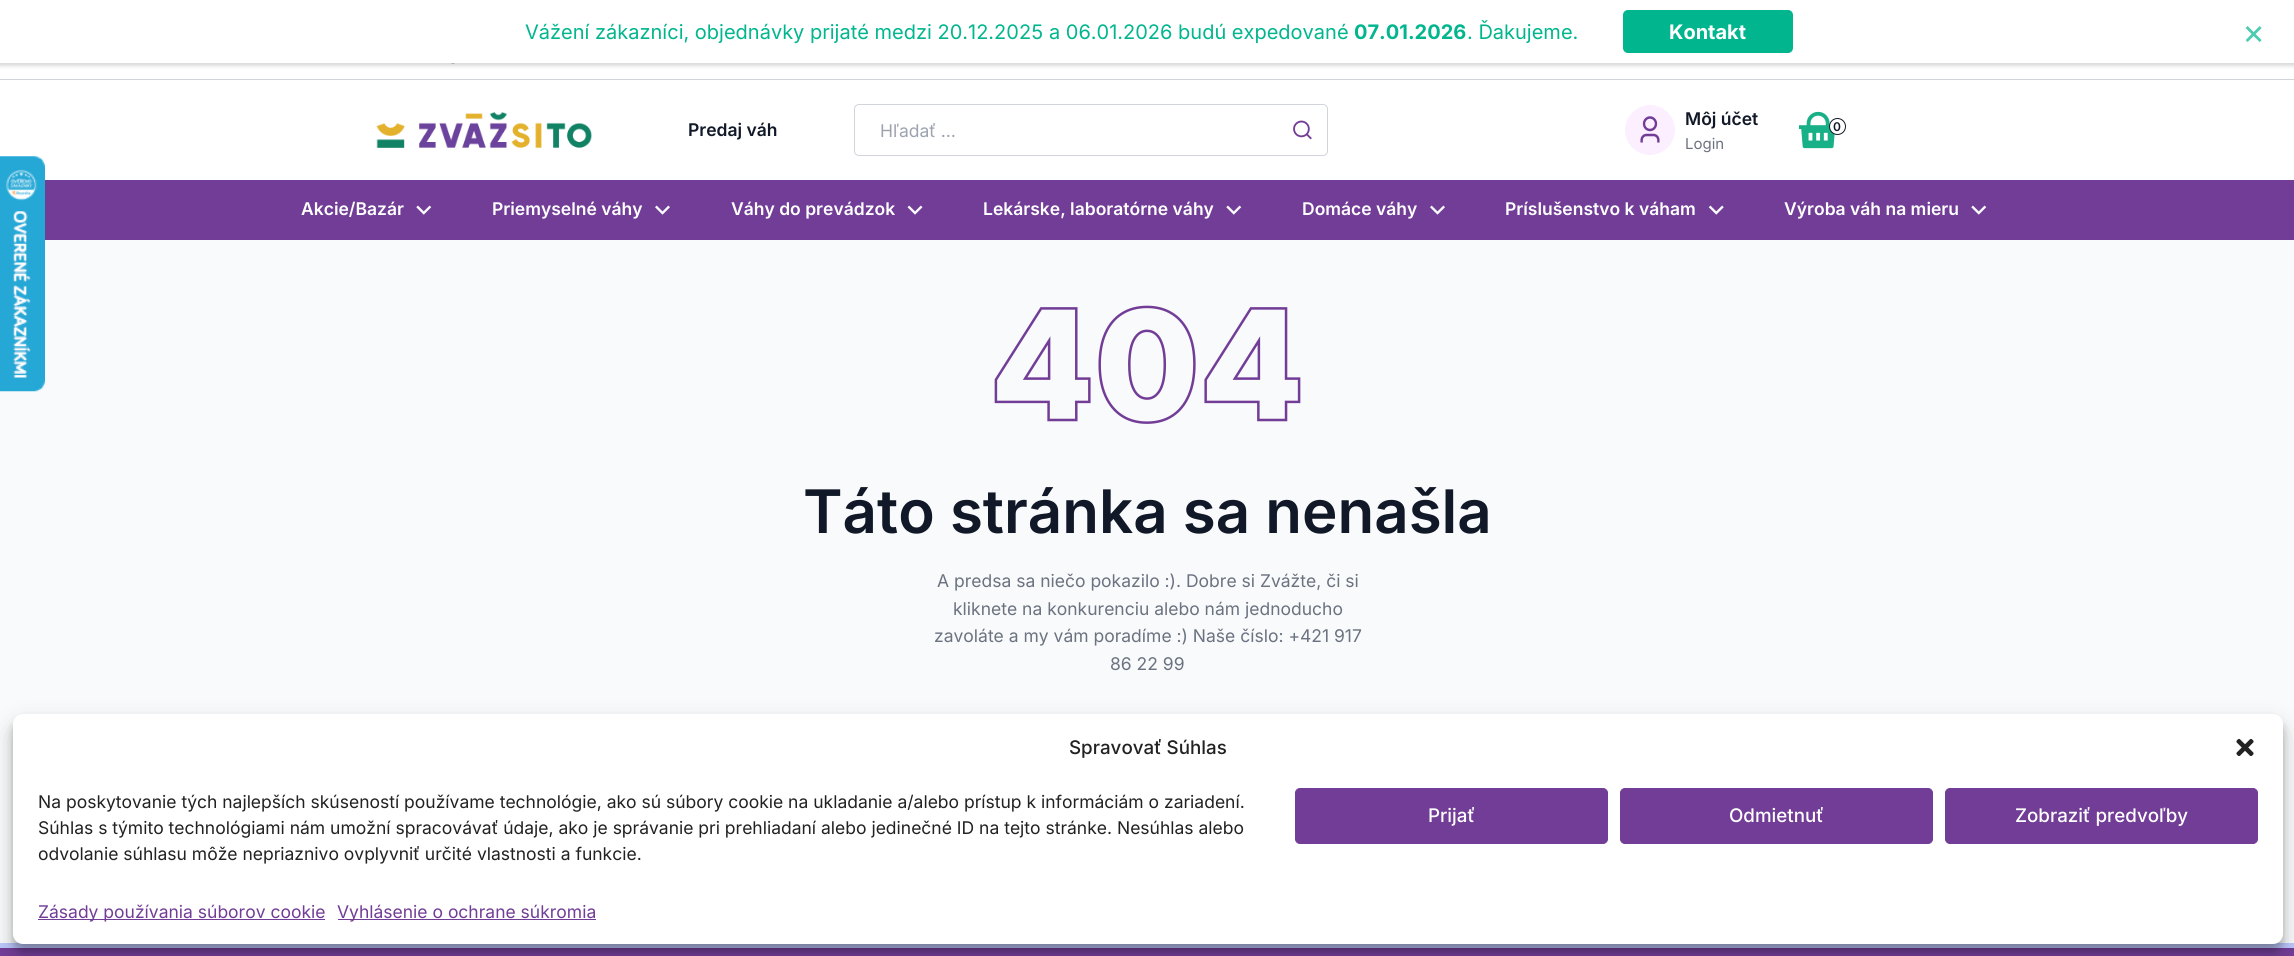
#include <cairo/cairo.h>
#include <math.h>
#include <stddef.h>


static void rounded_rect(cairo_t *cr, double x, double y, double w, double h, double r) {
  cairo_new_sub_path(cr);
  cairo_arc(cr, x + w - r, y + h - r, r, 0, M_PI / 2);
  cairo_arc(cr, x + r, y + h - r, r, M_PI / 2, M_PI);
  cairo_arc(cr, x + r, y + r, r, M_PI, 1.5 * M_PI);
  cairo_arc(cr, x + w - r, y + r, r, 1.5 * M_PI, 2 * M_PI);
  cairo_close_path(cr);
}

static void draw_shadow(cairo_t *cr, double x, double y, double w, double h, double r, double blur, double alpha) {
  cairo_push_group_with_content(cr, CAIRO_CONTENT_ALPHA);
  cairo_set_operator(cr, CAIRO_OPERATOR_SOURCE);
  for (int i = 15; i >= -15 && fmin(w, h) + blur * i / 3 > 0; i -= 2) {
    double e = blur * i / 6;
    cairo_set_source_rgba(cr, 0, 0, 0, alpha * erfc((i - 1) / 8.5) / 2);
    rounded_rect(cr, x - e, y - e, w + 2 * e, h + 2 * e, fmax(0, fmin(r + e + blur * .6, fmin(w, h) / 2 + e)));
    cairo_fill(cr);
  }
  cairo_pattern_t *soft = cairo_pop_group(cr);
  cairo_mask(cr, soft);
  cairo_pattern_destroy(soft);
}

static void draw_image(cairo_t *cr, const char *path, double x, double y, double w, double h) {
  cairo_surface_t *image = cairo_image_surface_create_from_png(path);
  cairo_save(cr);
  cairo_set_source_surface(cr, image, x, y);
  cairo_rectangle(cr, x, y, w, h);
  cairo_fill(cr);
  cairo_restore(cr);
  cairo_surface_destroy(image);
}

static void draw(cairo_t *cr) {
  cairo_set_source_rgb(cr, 249 / 255.0, 250 / 255.0, 251 / 255.0);
  cairo_paint(cr);
  cairo_set_source_rgb(cr, 1, 1, 1);
  cairo_rectangle(cr, 0, 63, 2294, 117);
  cairo_fill(cr);
  draw_image(cr, "images/1.png", 0, 156, 45, 236);
  draw_image(cr, "images/2.png", 451, 63, 4, 1);
  cairo_set_source_rgb(cr, 0, 0, 0);
  draw_shadow(cr, -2, -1, 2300, 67, 0, 2, 0.15);
  cairo_set_source_rgb(cr, 1, 1, 1);
  cairo_rectangle(cr, 0, 0, 2294, 63);
  cairo_fill(cr);
  cairo_set_source_rgb(cr, 1 / 255.0, 182 / 255.0, 142 / 255.0);
  rounded_rect(cr, 1623, 10, 170, 43, 5);
  cairo_fill(cr);
  cairo_set_source_rgb(cr, 209 / 255.0, 213 / 255.0, 219 / 255.0);
  cairo_rectangle(cr, 0, 79, 2294, 1);
  cairo_fill(cr);
  draw_image(cr, "images/3.png", 376, 112, 216, 36);
  rounded_rect(cr, 854.5, 104.5, 473, 51, 4.5);
  cairo_set_line_width(cr, 1);
  cairo_stroke(cr);
  draw_image(cr, "images/4.png", 1293, 120, 19, 20);
  cairo_set_source_rgb(cr, 252 / 255.0, 239 / 255.0, 1);
  cairo_arc(cr, 1650, 130, 25, 0, 2 * M_PI);
  cairo_fill(cr);
  draw_image(cr, "images/5.png", 1640, 116, 20, 27);
  draw_image(cr, "images/6.png", 1799, 111, 36, 38);
  cairo_set_source_rgb(cr, 1, 1, 1);
  cairo_arc(cr, 1837.5, 126.5, 8, 0, 2 * M_PI);
  cairo_fill_preserve(cr);
  cairo_set_source_rgb(cr, 17 / 255.0, 24 / 255.0, 39 / 255.0);
  cairo_stroke(cr);
  cairo_set_source_rgb(cr, 114 / 255.0, 61 / 255.0, 151 / 255.0);
  cairo_rectangle(cr, 45, 180, 2249, 60);
  cairo_fill(cr);
  draw_image(cr, "images/7.png", 416, 205, 16, 10);
  draw_image(cr, "images/8.png", 655, 205, 15, 10);
  draw_image(cr, "images/9.png", 907, 205, 16, 10);
  draw_image(cr, "images/7.png", 1226, 205, 16, 10);
  draw_image(cr, "images/8.png", 1430, 205, 15, 10);
  draw_image(cr, "images/10.png", 1708, 205, 16, 10);
  draw_image(cr, "images/7.png", 1971, 205, 16, 10);
  draw_image(cr, "images/11.png", 994, 305, 307, 119);
  cairo_rectangle(cr, 0, 948, 2294, 8);
  cairo_fill(cr);
  cairo_set_source_rgb(cr, 188 / 255.0, 200 / 255.0, 253 / 255.0);
  cairo_rectangle(cr, 0, 943, 2294, 5);
  cairo_fill(cr);
  cairo_set_source_rgb(cr, 0, 0, 0);
  draw_shadow(cr, 13, 721, 2270, 230, 10, 4, 0.23);
  draw_shadow(cr, 13, 726, 2270, 230, 10, 12.5, 0.19);
  cairo_set_source_rgb(cr, 1, 1, 1);
  rounded_rect(cr, 13, 714, 2270, 230, 10);
  cairo_fill(cr);
  draw_image(cr, "images/12.png", 2236, 738, 18, 18);
  cairo_set_source_rgb(cr, 114 / 255.0, 61 / 255.0, 151 / 255.0);
  rounded_rect(cr, 1295.5, 788.5, 312, 55, 4.5);
  cairo_fill_preserve(cr);
  cairo_stroke(cr);
  rounded_rect(cr, 1620.5, 788.5, 312, 55, 4.5);
  cairo_fill_preserve(cr);
  cairo_stroke(cr);
  rounded_rect(cr, 1945.5, 788.5, 312, 55, 4.5);
  cairo_fill_preserve(cr);
  cairo_stroke(cr);
  cairo_rectangle(cr, 38, 919, 287, 1);
  cairo_fill(cr);
  cairo_rectangle(cr, 338, 919, 258, 1);
  cairo_fill(cr);
  cairo_select_font_face(cr, "Inter", CAIRO_FONT_SLANT_NORMAL, CAIRO_FONT_WEIGHT_NORMAL);
  cairo_set_font_size(cr, 20);
  cairo_set_source_rgb(cr, 1 / 255.0, 182 / 255.0, 142 / 255.0);
  cairo_move_to(cr, 525, 39);
  cairo_show_text(cr, "Vážení zákazníci, objednávky prijaté medzi 20.12.2025 a 06.01.2026 budú expedované");
  cairo_select_font_face(cr, "Inter", CAIRO_FONT_SLANT_NORMAL, CAIRO_FONT_WEIGHT_BOLD);
  cairo_move_to(cr, 1354, 39);
  cairo_show_text(cr, "07.01.2026");
  cairo_select_font_face(cr, "Inter", CAIRO_FONT_SLANT_NORMAL, CAIRO_FONT_WEIGHT_NORMAL);
  cairo_move_to(cr, 1467, 39);
  cairo_show_text(cr, ". Ďakujeme.");
  cairo_select_font_face(cr, "Inter", CAIRO_FONT_SLANT_NORMAL, CAIRO_FONT_WEIGHT_BOLD);
  cairo_set_source_rgb(cr, 1, 1, 1);
  cairo_move_to(cr, 1669, 39);
  cairo_show_text(cr, "Kontakt");
  cairo_select_font_face(cr, "Inter", CAIRO_FONT_SLANT_NORMAL, CAIRO_FONT_WEIGHT_NORMAL);
  cairo_set_font_size(cr, 35);
  cairo_set_source_rgb(cr, 77 / 255.0, 204 / 255.0, 176 / 255.0);
  cairo_move_to(cr, 2242, 44);
  cairo_show_text(cr, "×");
  cairo_select_font_face(cr, "Inter SemiBold", CAIRO_FONT_SLANT_NORMAL, CAIRO_FONT_WEIGHT_NORMAL);
  cairo_set_font_size(cr, 17.5);
  cairo_set_source_rgb(cr, 17 / 255.0, 24 / 255.0, 39 / 255.0);
  cairo_move_to(cr, 688, 136);
  cairo_show_text(cr, "Predaj váh");
  cairo_select_font_face(cr, "Inter", CAIRO_FONT_SLANT_NORMAL, CAIRO_FONT_WEIGHT_NORMAL);
  cairo_set_source_rgb(cr, 156 / 255.0, 163 / 255.0, 175 / 255.0);
  cairo_move_to(cr, 880, 137);
  cairo_show_text(cr, "Hľadať …");
  cairo_select_font_face(cr, "Inter SemiBold", CAIRO_FONT_SLANT_NORMAL, CAIRO_FONT_WEIGHT_NORMAL);
  cairo_set_source_rgb(cr, 17 / 255.0, 24 / 255.0, 39 / 255.0);
  cairo_move_to(cr, 1685, 125);
  cairo_show_text(cr, "Môj účet");
  cairo_select_font_face(cr, "Inter", CAIRO_FONT_SLANT_NORMAL, CAIRO_FONT_WEIGHT_NORMAL);
  cairo_set_font_size(cr, 15);
  cairo_set_source_rgb(cr, 107 / 255.0, 114 / 255.0, 128 / 255.0);
  cairo_move_to(cr, 1685, 149);
  cairo_show_text(cr, "Login");
  cairo_select_font_face(cr, "Inter SemiBold", CAIRO_FONT_SLANT_NORMAL, CAIRO_FONT_WEIGHT_NORMAL);
  cairo_set_font_size(cr, 12);
  cairo_set_source_rgb(cr, 17 / 255.0, 24 / 255.0, 39 / 255.0);
  cairo_move_to(cr, 1833, 131);
  cairo_show_text(cr, "0");
  cairo_set_font_size(cr, 17.5);
  cairo_set_source_rgb(cr, 1, 1, 1);
  cairo_move_to(cr, 301, 215);
  cairo_show_text(cr, "Akcie/Bazár");
  cairo_move_to(cr, 492, 215);
  cairo_show_text(cr, "Priemyselné váhy");
  cairo_move_to(cr, 731, 215);
  cairo_show_text(cr, "Váhy do prevádzok");
  cairo_move_to(cr, 983, 215);
  cairo_show_text(cr, "Lekárske, laboratórne váhy");
  cairo_move_to(cr, 1302, 215);
  cairo_show_text(cr, "Domáce váhy");
  cairo_move_to(cr, 1505, 215);
  cairo_show_text(cr, "Príslušenstvo k váham");
  cairo_move_to(cr, 1784, 215);
  cairo_show_text(cr, "Výroba váh na mieru");
  cairo_set_font_size(cr, 60);
  cairo_set_source_rgb(cr, 17 / 255.0, 24 / 255.0, 39 / 255.0);
  cairo_move_to(cr, 803, 533);
  cairo_show_text(cr, "Táto stránka sa nenašla");
  cairo_select_font_face(cr, "Inter", CAIRO_FONT_SLANT_NORMAL, CAIRO_FONT_WEIGHT_NORMAL);
  cairo_set_font_size(cr, 17.5);
  cairo_set_source_rgb(cr, 107 / 255.0, 114 / 255.0, 128 / 255.0);
  cairo_move_to(cr, 937, 587);
  cairo_show_text(cr, "A predsa sa niečo pokazilo :). Dobre si Zvážte, či si");
  cairo_move_to(cr, 953, 615);
  cairo_show_text(cr, "kliknete na konkurenciu alebo nám jednoducho");
  cairo_move_to(cr, 934, 642);
  cairo_show_text(cr, "zavoláte a my vám poradíme :) Naše číslo: +421 917");
  cairo_move_to(cr, 1110, 670);
  cairo_show_text(cr, "86 22 99");
  cairo_select_font_face(cr, "Inter Medium", CAIRO_FONT_SLANT_NORMAL, CAIRO_FONT_WEIGHT_NORMAL);
  cairo_set_font_size(cr, 18.75);
  cairo_set_source_rgb(cr, 34 / 255.0, 34 / 255.0, 34 / 255.0);
  cairo_move_to(cr, 1069, 754);
  cairo_show_text(cr, "Spravovať Súhlas");
  cairo_select_font_face(cr, "Inter", CAIRO_FONT_SLANT_NORMAL, CAIRO_FONT_WEIGHT_NORMAL);
  cairo_set_font_size(cr, 17.5);
  cairo_move_to(cr, 38, 808);
  cairo_show_text(cr, "Na poskytovanie tých najlepších skúseností používame technológie, ako sú súbory cookie na ukladanie a/alebo prístup k informáciám o zariadení.");
  cairo_move_to(cr, 38, 834);
  cairo_show_text(cr, "Súhlas s týmito technológiami nám umožní spracovávať údaje, ako je správanie pri prehliadaní alebo jedinečné ID na tejto stránke. Nesúhlas alebo");
  cairo_move_to(cr, 38, 860);
  cairo_show_text(cr, "odvolanie súhlasu môže nepriaznivo ovplyvniť určité vlastnosti a funkcie.");
  cairo_select_font_face(cr, "Inter Medium", CAIRO_FONT_SLANT_NORMAL, CAIRO_FONT_WEIGHT_NORMAL);
  cairo_set_font_size(cr, 18.75);
  cairo_set_source_rgb(cr, 1, 1, 1);
  cairo_move_to(cr, 1428, 822);
  cairo_show_text(cr, "Prijať");
  cairo_move_to(cr, 1729, 822);
  cairo_show_text(cr, "Odmietnuť");
  cairo_move_to(cr, 2015, 822);
  cairo_show_text(cr, "Zobraziť predvoľby");
  cairo_select_font_face(cr, "Inter", CAIRO_FONT_SLANT_NORMAL, CAIRO_FONT_WEIGHT_NORMAL);
  cairo_set_font_size(cr, 17.5);
  cairo_set_source_rgb(cr, 114 / 255.0, 61 / 255.0, 151 / 255.0);
  cairo_move_to(cr, 38, 918);
  cairo_show_text(cr, "Zásady používania súborov cookie");
  cairo_move_to(cr, 337, 918);
  cairo_show_text(cr, "Vyhlásenie o ochrane súkromia");
}

int main(void) {
  cairo_surface_t *surface = cairo_image_surface_create(CAIRO_FORMAT_RGB24, 2294, 956);
  cairo_t *cr = cairo_create(surface);
  cairo_font_options_t *options = cairo_font_options_create();
  cairo_font_options_set_hint_metrics(options, CAIRO_HINT_METRICS_OFF);
  cairo_font_options_set_hint_style(options, CAIRO_HINT_STYLE_NONE);
  cairo_set_font_options(cr, options);
  cairo_set_miter_limit(cr, 4);
  draw(cr);
  cairo_surface_write_to_png(surface, "out.png");
  cairo_font_options_destroy(options);
  cairo_destroy(cr);
  cairo_surface_destroy(surface);
  return 0;
}
